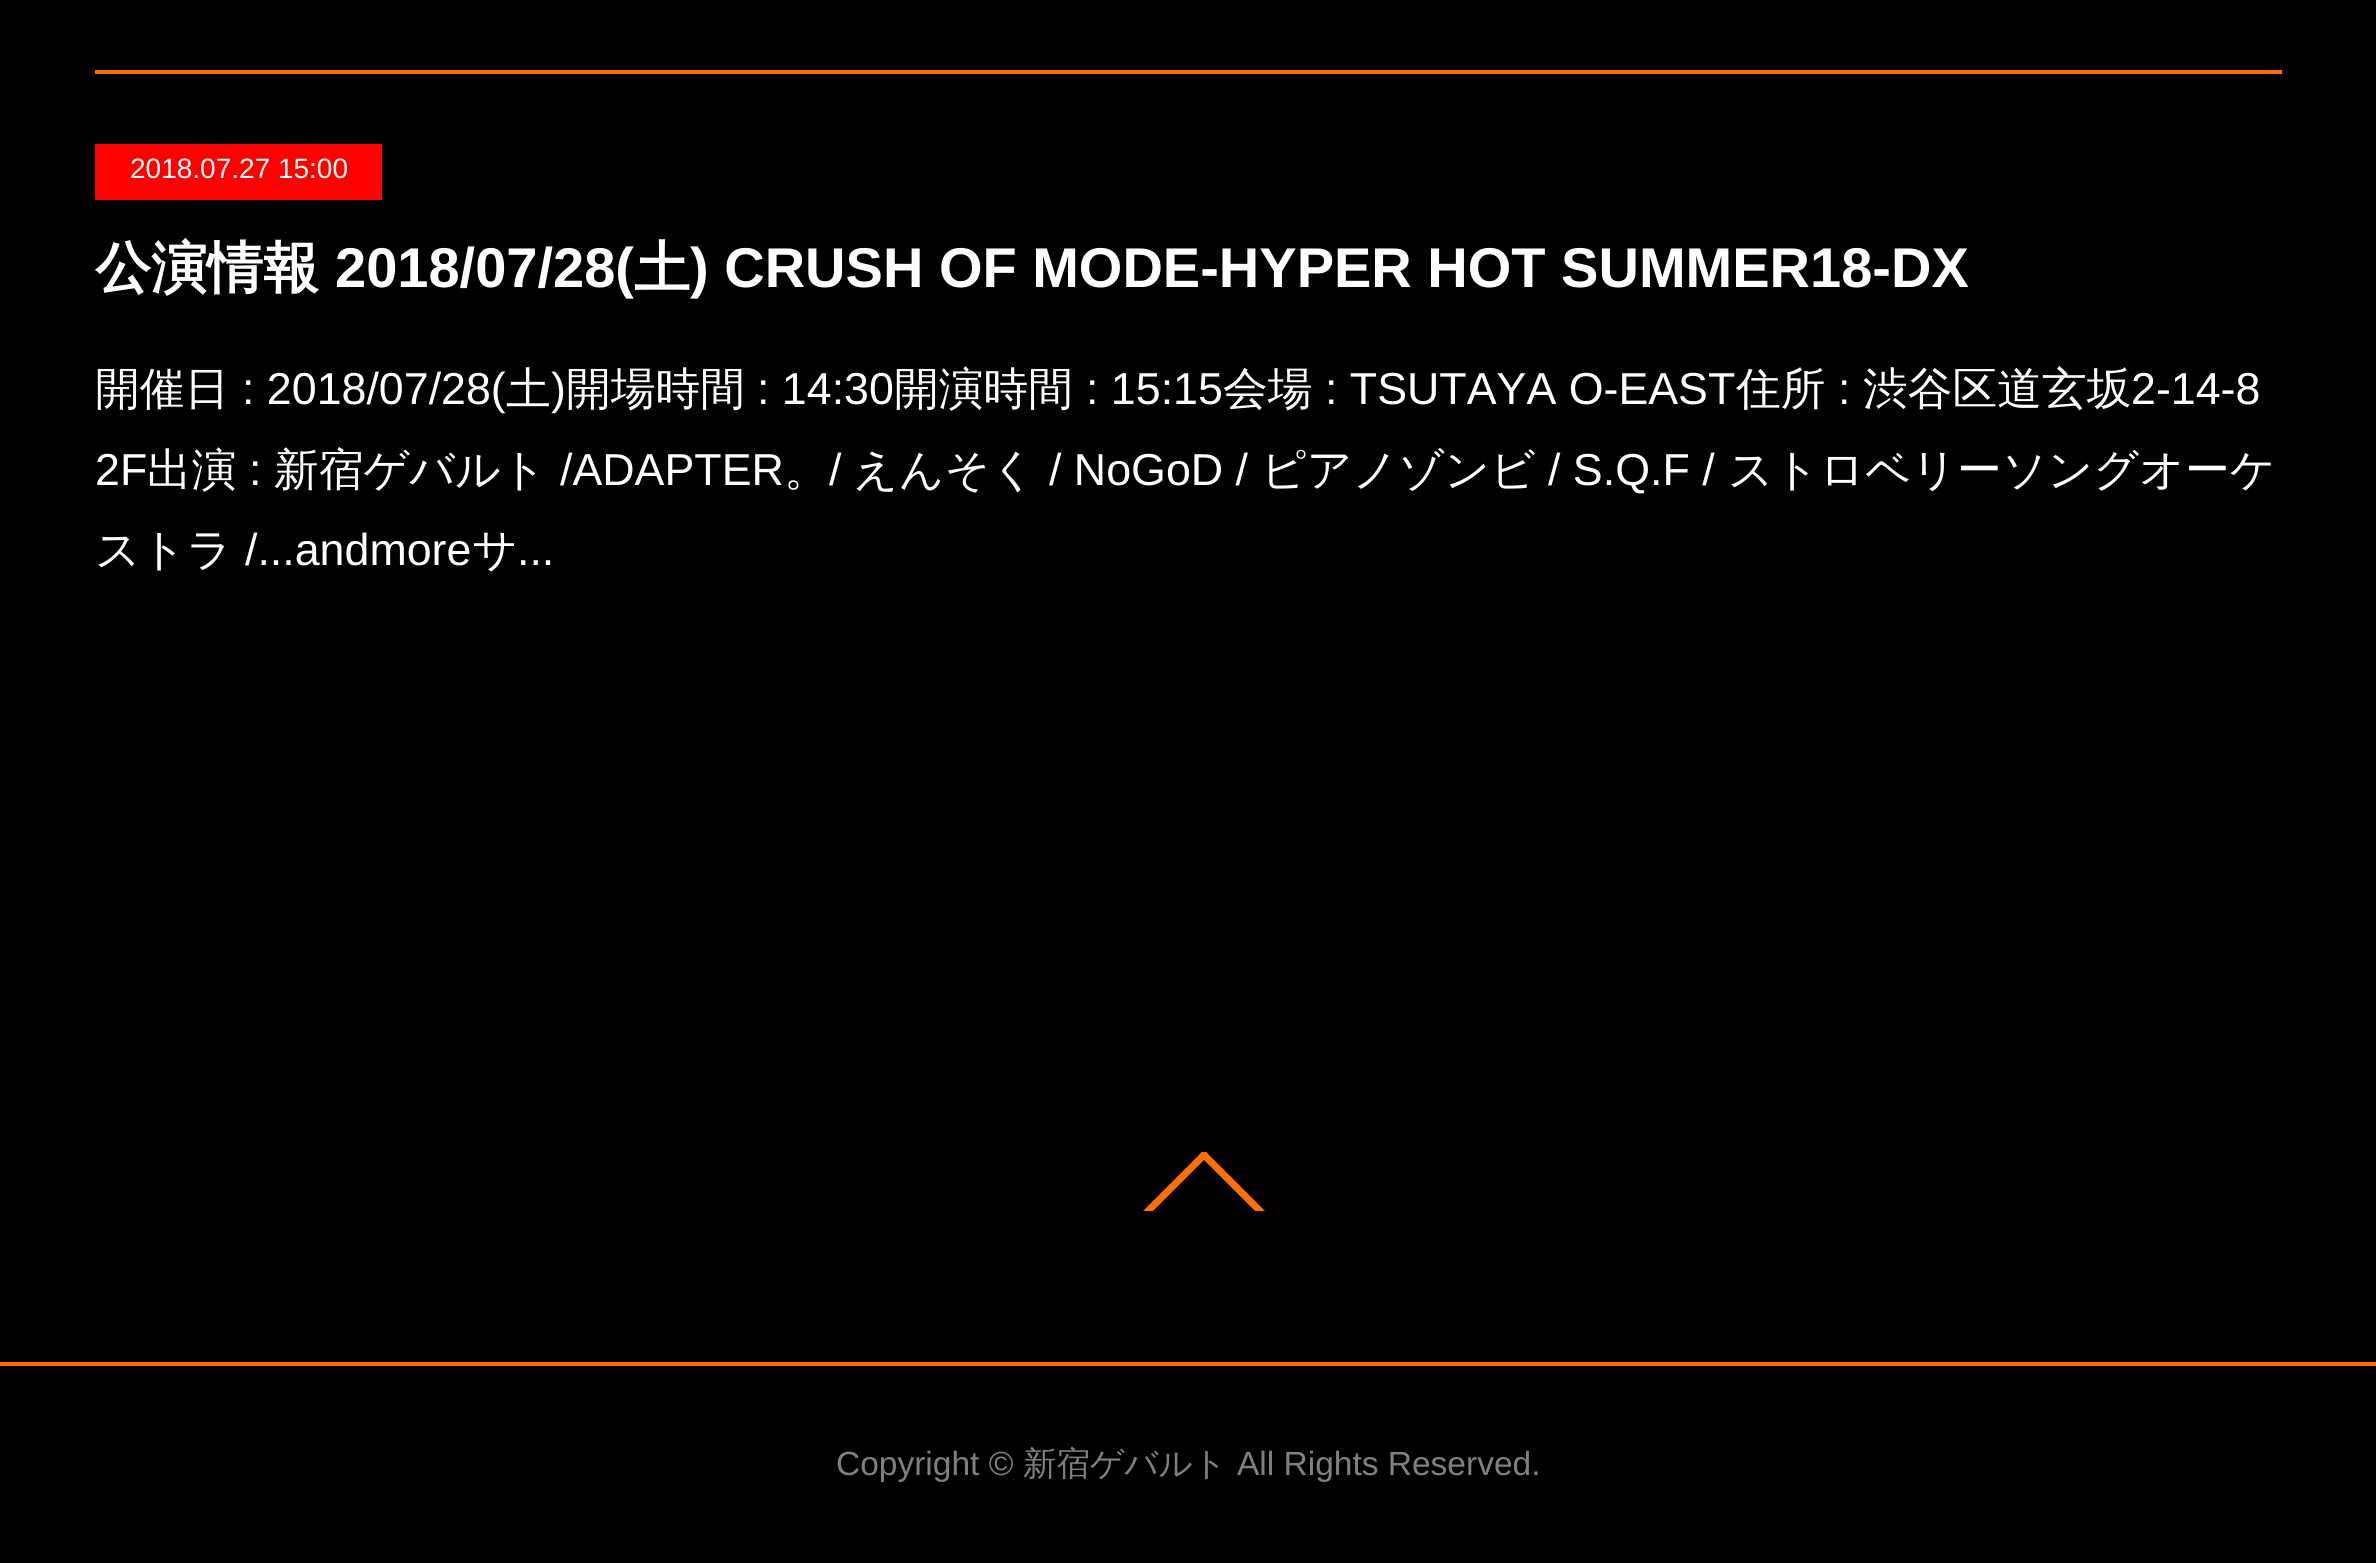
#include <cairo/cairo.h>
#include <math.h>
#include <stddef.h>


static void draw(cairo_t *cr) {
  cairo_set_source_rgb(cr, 0, 0, 0);
  cairo_paint(cr);
  cairo_set_source_rgb(cr, 1, 111 / 255.0, 0);
  cairo_rectangle(cr, 95, 70, 2187, 4);
  cairo_fill(cr);
  cairo_set_source_rgb(cr, 1, 0, 0);
  cairo_rectangle(cr, 95, 144, 287, 56);
  cairo_fill(cr);
  cairo_save(cr);
  cairo_rectangle(cr, 0, 1152, 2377, 59);
  cairo_clip(cr);
  cairo_set_source_rgb(cr, 1, 111 / 255.0, 0);
  cairo_new_path(cr);
  cairo_move_to(cr, 1132, 1222);
  cairo_line_to(cr, 1204, 1150);
  cairo_line_to(cr, 1209, 1155);
  cairo_line_to(cr, 1137, 1227);
  cairo_close_path(cr);
  cairo_fill(cr);
  cairo_new_path(cr);
  cairo_move_to(cr, 1199, 1155);
  cairo_line_to(cr, 1204, 1150);
  cairo_line_to(cr, 1276, 1222);
  cairo_line_to(cr, 1271, 1227);
  cairo_close_path(cr);
  cairo_fill(cr);
  cairo_restore(cr);
  cairo_set_source_rgb(cr, 1, 111 / 255.0, 0);
  cairo_rectangle(cr, 0, 1362, 2376, 4);
  cairo_fill(cr);
  cairo_select_font_face(cr, "Liberation Sans", CAIRO_FONT_SLANT_NORMAL, CAIRO_FONT_WEIGHT_NORMAL);
  cairo_set_font_size(cr, 28);
  cairo_set_source_rgb(cr, 1, 1, 1);
  cairo_move_to(cr, 130, 178);
  cairo_show_text(cr, "2018.07.27 15:00");
  cairo_select_font_face(cr, "WenQuanYi Zen Hei", CAIRO_FONT_SLANT_NORMAL, CAIRO_FONT_WEIGHT_BOLD);
  cairo_set_font_size(cr, 56);
  cairo_move_to(cr, 95, 287);
  cairo_show_text(cr, "公演情報");
  cairo_select_font_face(cr, "Liberation Sans", CAIRO_FONT_SLANT_NORMAL, CAIRO_FONT_WEIGHT_BOLD);
  cairo_move_to(cr, 335, 287);
  cairo_show_text(cr, "2018/07/28(");
  cairo_select_font_face(cr, "WenQuanYi Zen Hei", CAIRO_FONT_SLANT_NORMAL, CAIRO_FONT_WEIGHT_BOLD);
  cairo_move_to(cr, 634, 287);
  cairo_show_text(cr, "土");
  cairo_select_font_face(cr, "Liberation Sans", CAIRO_FONT_SLANT_NORMAL, CAIRO_FONT_WEIGHT_BOLD);
  cairo_move_to(cr, 690, 287);
  cairo_show_text(cr, ") CRUSH OF MODE-HYPER HOT SUMMER18-DX");
  cairo_select_font_face(cr, "WenQuanYi Zen Hei Medium", CAIRO_FONT_SLANT_NORMAL, CAIRO_FONT_WEIGHT_NORMAL);
  cairo_set_font_size(cr, 44.75);
  cairo_move_to(cr, 95, 404);
  cairo_show_text(cr, "開催日");
  cairo_select_font_face(cr, "Liberation Sans", CAIRO_FONT_SLANT_NORMAL, CAIRO_FONT_WEIGHT_NORMAL);
  cairo_move_to(cr, 242, 404);
  cairo_show_text(cr, ": 2018/07/28(");
  cairo_select_font_face(cr, "WenQuanYi Zen Hei Medium", CAIRO_FONT_SLANT_NORMAL, CAIRO_FONT_WEIGHT_NORMAL);
  cairo_move_to(cr, 506, 404);
  cairo_show_text(cr, "土");
  cairo_select_font_face(cr, "Liberation Sans", CAIRO_FONT_SLANT_NORMAL, CAIRO_FONT_WEIGHT_NORMAL);
  cairo_move_to(cr, 551, 404);
  cairo_show_text(cr, ")");
  cairo_select_font_face(cr, "WenQuanYi Zen Hei Medium", CAIRO_FONT_SLANT_NORMAL, CAIRO_FONT_WEIGHT_NORMAL);
  cairo_move_to(cr, 566, 404);
  cairo_show_text(cr, "開場時間");
  cairo_select_font_face(cr, "Liberation Sans", CAIRO_FONT_SLANT_NORMAL, CAIRO_FONT_WEIGHT_NORMAL);
  cairo_move_to(cr, 757, 404);
  cairo_show_text(cr, ": 14:30");
  cairo_select_font_face(cr, "WenQuanYi Zen Hei Medium", CAIRO_FONT_SLANT_NORMAL, CAIRO_FONT_WEIGHT_NORMAL);
  cairo_move_to(cr, 894, 404);
  cairo_show_text(cr, "開演時間");
  cairo_select_font_face(cr, "Liberation Sans", CAIRO_FONT_SLANT_NORMAL, CAIRO_FONT_WEIGHT_NORMAL);
  cairo_move_to(cr, 1086, 404);
  cairo_show_text(cr, ": 15:15");
  cairo_select_font_face(cr, "WenQuanYi Zen Hei Medium", CAIRO_FONT_SLANT_NORMAL, CAIRO_FONT_WEIGHT_NORMAL);
  cairo_move_to(cr, 1223, 404);
  cairo_show_text(cr, "会場");
  cairo_select_font_face(cr, "Liberation Sans", CAIRO_FONT_SLANT_NORMAL, CAIRO_FONT_WEIGHT_NORMAL);
  cairo_move_to(cr, 1325, 404);
  cairo_show_text(cr, ": TSUTAYA O-EAST");
  cairo_select_font_face(cr, "WenQuanYi Zen Hei Medium", CAIRO_FONT_SLANT_NORMAL, CAIRO_FONT_WEIGHT_NORMAL);
  cairo_move_to(cr, 1736, 404);
  cairo_show_text(cr, "住所");
  cairo_select_font_face(cr, "Liberation Sans", CAIRO_FONT_SLANT_NORMAL, CAIRO_FONT_WEIGHT_NORMAL);
  cairo_move_to(cr, 1838, 404);
  cairo_show_text(cr, ":");
  cairo_select_font_face(cr, "WenQuanYi Zen Hei Medium", CAIRO_FONT_SLANT_NORMAL, CAIRO_FONT_WEIGHT_NORMAL);
  cairo_move_to(cr, 1863, 404);
  cairo_show_text(cr, "渋谷区道玄坂");
  cairo_select_font_face(cr, "Liberation Sans", CAIRO_FONT_SLANT_NORMAL, CAIRO_FONT_WEIGHT_NORMAL);
  cairo_move_to(cr, 2131, 404);
  cairo_show_text(cr, "2-14-8");
  cairo_move_to(cr, 95, 485);
  cairo_show_text(cr, "2F");
  cairo_select_font_face(cr, "WenQuanYi Zen Hei Medium", CAIRO_FONT_SLANT_NORMAL, CAIRO_FONT_WEIGHT_NORMAL);
  cairo_move_to(cr, 147, 485);
  cairo_show_text(cr, "出演");
  cairo_select_font_face(cr, "Liberation Sans", CAIRO_FONT_SLANT_NORMAL, CAIRO_FONT_WEIGHT_NORMAL);
  cairo_move_to(cr, 249, 485);
  cairo_show_text(cr, ":");
  cairo_select_font_face(cr, "WenQuanYi Zen Hei Medium", CAIRO_FONT_SLANT_NORMAL, CAIRO_FONT_WEIGHT_NORMAL);
  cairo_move_to(cr, 274, 485);
  cairo_show_text(cr, "新宿ゲバルト");
  cairo_select_font_face(cr, "Liberation Sans", CAIRO_FONT_SLANT_NORMAL, CAIRO_FONT_WEIGHT_NORMAL);
  cairo_move_to(cr, 560, 485);
  cairo_show_text(cr, "/ADAPTER");
  cairo_select_font_face(cr, "WenQuanYi Zen Hei Medium", CAIRO_FONT_SLANT_NORMAL, CAIRO_FONT_WEIGHT_NORMAL);
  cairo_move_to(cr, 784, 485);
  cairo_show_text(cr, "。");
  cairo_select_font_face(cr, "Liberation Sans", CAIRO_FONT_SLANT_NORMAL, CAIRO_FONT_WEIGHT_NORMAL);
  cairo_move_to(cr, 829, 485);
  cairo_show_text(cr, "/");
  cairo_select_font_face(cr, "WenQuanYi Zen Hei Medium", CAIRO_FONT_SLANT_NORMAL, CAIRO_FONT_WEIGHT_NORMAL);
  cairo_move_to(cr, 853, 485);
  cairo_show_text(cr, "えんそく");
  cairo_select_font_face(cr, "Liberation Sans", CAIRO_FONT_SLANT_NORMAL, CAIRO_FONT_WEIGHT_NORMAL);
  cairo_move_to(cr, 1049, 485);
  cairo_show_text(cr, "/ NoGoD /");
  cairo_select_font_face(cr, "WenQuanYi Zen Hei Medium", CAIRO_FONT_SLANT_NORMAL, CAIRO_FONT_WEIGHT_NORMAL);
  cairo_move_to(cr, 1261, 485);
  cairo_show_text(cr, "ピアノゾンビ");
  cairo_select_font_face(cr, "Liberation Sans", CAIRO_FONT_SLANT_NORMAL, CAIRO_FONT_WEIGHT_NORMAL);
  cairo_move_to(cr, 1548, 485);
  cairo_show_text(cr, "/ S.Q.F /");
  cairo_select_font_face(cr, "WenQuanYi Zen Hei Medium", CAIRO_FONT_SLANT_NORMAL, CAIRO_FONT_WEIGHT_NORMAL);
  cairo_move_to(cr, 1728, 485);
  cairo_show_text(cr, "ストロベリーソングオーケ");
  cairo_move_to(cr, 95, 565);
  cairo_show_text(cr, "ストラ");
  cairo_select_font_face(cr, "Liberation Sans", CAIRO_FONT_SLANT_NORMAL, CAIRO_FONT_WEIGHT_NORMAL);
  cairo_move_to(cr, 245, 565);
  cairo_show_text(cr, "/...andmore");
  cairo_select_font_face(cr, "WenQuanYi Zen Hei Medium", CAIRO_FONT_SLANT_NORMAL, CAIRO_FONT_WEIGHT_NORMAL);
  cairo_move_to(cr, 472, 565);
  cairo_show_text(cr, "サ");
  cairo_select_font_face(cr, "Liberation Sans", CAIRO_FONT_SLANT_NORMAL, CAIRO_FONT_WEIGHT_NORMAL);
  cairo_move_to(cr, 517, 565);
  cairo_show_text(cr, "...");
  cairo_set_font_size(cr, 33.5);
  cairo_set_source_rgb(cr, 128 / 255.0, 128 / 255.0, 128 / 255.0);
  cairo_move_to(cr, 836, 1475);
  cairo_show_text(cr, "Copyright ©");
  cairo_select_font_face(cr, "WenQuanYi Zen Hei Medium", CAIRO_FONT_SLANT_NORMAL, CAIRO_FONT_WEIGHT_NORMAL);
  cairo_move_to(cr, 1023, 1475);
  cairo_show_text(cr, "新宿ゲバルト");
  cairo_select_font_face(cr, "Liberation Sans", CAIRO_FONT_SLANT_NORMAL, CAIRO_FONT_WEIGHT_NORMAL);
  cairo_move_to(cr, 1237, 1475);
  cairo_show_text(cr, "All Rights Reserved.");
}

int main(void) {
  cairo_surface_t *surface = cairo_image_surface_create(CAIRO_FORMAT_RGB24, 2376, 1563);
  cairo_t *cr = cairo_create(surface);
  cairo_font_options_t *options = cairo_font_options_create();
  cairo_font_options_set_hint_metrics(options, CAIRO_HINT_METRICS_OFF);
  cairo_font_options_set_hint_style(options, CAIRO_HINT_STYLE_NONE);
  cairo_set_font_options(cr, options);
  cairo_set_miter_limit(cr, 4);
  draw(cr);
  cairo_surface_write_to_png(surface, "out.png");
  cairo_font_options_destroy(options);
  cairo_destroy(cr);
  cairo_surface_destroy(surface);
  return 0;
}
